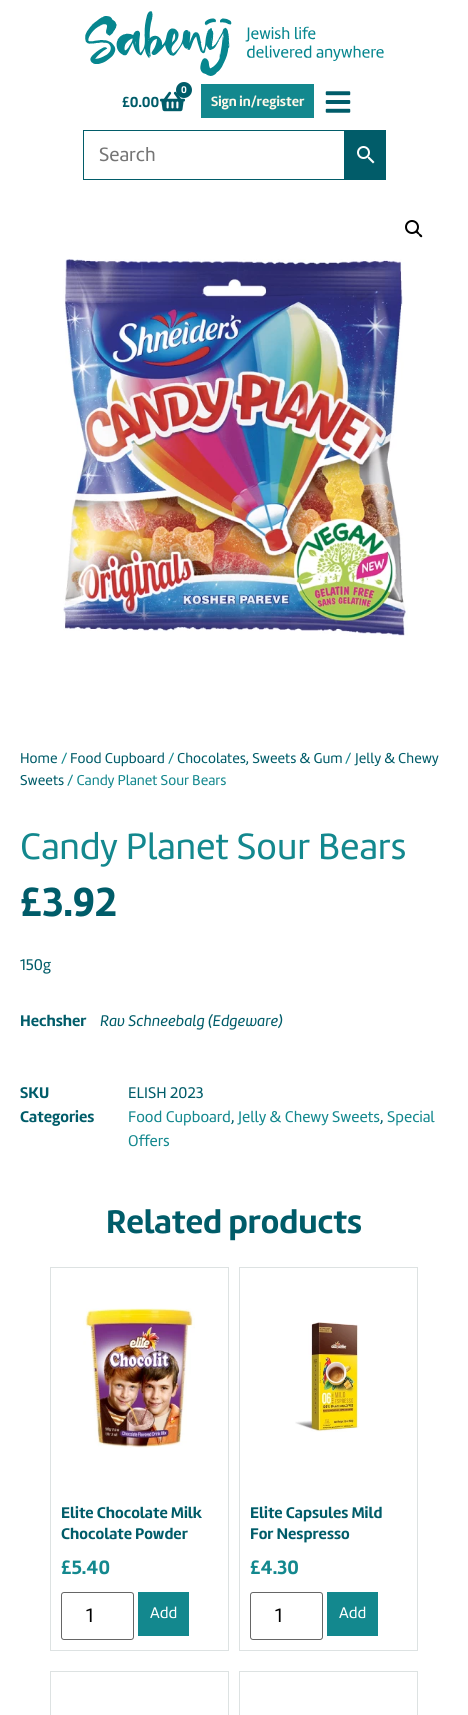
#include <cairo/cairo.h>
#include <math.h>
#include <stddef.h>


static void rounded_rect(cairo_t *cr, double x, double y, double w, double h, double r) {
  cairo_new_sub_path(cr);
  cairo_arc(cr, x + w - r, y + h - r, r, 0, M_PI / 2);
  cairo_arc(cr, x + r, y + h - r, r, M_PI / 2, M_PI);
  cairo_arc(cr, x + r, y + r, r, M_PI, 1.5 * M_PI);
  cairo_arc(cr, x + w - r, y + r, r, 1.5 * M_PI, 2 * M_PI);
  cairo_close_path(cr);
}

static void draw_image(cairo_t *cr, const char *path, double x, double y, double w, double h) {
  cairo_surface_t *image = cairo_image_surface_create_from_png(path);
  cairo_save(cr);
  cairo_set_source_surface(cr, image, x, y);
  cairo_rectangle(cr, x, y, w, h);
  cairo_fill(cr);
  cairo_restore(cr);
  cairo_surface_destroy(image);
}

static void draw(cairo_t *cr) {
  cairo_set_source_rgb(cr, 1, 1, 1);
  cairo_paint(cr);
  draw_image(cr, "images/1.png", 85, 11, 299, 65);
  draw_image(cr, "images/2.png", 160, 91, 25, 21);
  cairo_set_source_rgb(cr, 0, 92 / 255.0, 105 / 255.0);
  cairo_arc(cr, 184, 90, 8, 0, 2 * M_PI);
  cairo_fill(cr);
  cairo_set_source_rgb(cr, 19 / 255.0, 136 / 255.0, 142 / 255.0);
  cairo_rectangle(cr, 201, 84, 113, 34);
  cairo_fill(cr);
  draw_image(cr, "images/3.png", 325, 91, 26, 22);
  cairo_rectangle(cr, 83.5, 130.5, 261, 49);
  cairo_set_source_rgb(cr, 1 / 255.0, 92 / 255.0, 105 / 255.0);
  cairo_set_line_width(cr, 1);
  cairo_stroke(cr);
  cairo_rectangle(cr, 345, 130, 41, 50);
  cairo_fill(cr);
  draw_image(cr, "images/4.png", 357, 146, 18, 18);
  cairo_arc(cr, 412, 227, 6, 0, 2 * M_PI);
  cairo_set_source_rgb(cr, 0, 0, 0);
  cairo_set_line_width(cr, 2);
  cairo_stroke(cr);
  cairo_new_path(cr);
  cairo_move_to(cr, 416, 231);
  cairo_curve_to(cr, 417.5, 230, 419, 232.5, 419.5, 233.5);
  cairo_curve_to(cr, 420.5, 234, 423, 235.5, 422, 237);
  cairo_curve_to(cr, 420.5, 238, 419, 235.5, 418.5, 234.5);
  cairo_curve_to(cr, 417.5, 234, 415, 232.5, 416, 231);
  cairo_close_path(cr);
  cairo_fill(cr);
  draw_image(cr, "images/5.png", 63, 259, 345, 377);
  cairo_rectangle(cr, 50.5, 1267.5, 178, 383);
  cairo_set_source_rgb(cr, 221 / 255.0, 226 / 255.0, 226 / 255.0);
  cairo_set_line_width(cr, 1);
  cairo_stroke(cr);
  draw_image(cr, "images/6.png", 83, 1308, 112, 140);
  rounded_rect(cr, 61.5, 1592.5, 72, 47, 2.5);
  cairo_set_source_rgb(cr, 102 / 255.0, 102 / 255.0, 102 / 255.0);
  cairo_stroke(cr);
  cairo_set_source_rgb(cr, 19 / 255.0, 136 / 255.0, 142 / 255.0);
  cairo_rectangle(cr, 138, 1592, 51, 44);
  cairo_fill(cr);
  cairo_rectangle(cr, 239.5, 1267.5, 178, 383);
  cairo_set_source_rgb(cr, 221 / 255.0, 226 / 255.0, 226 / 255.0);
  cairo_stroke(cr);
  draw_image(cr, "images/7.png", 295, 1322, 64, 110);
  rounded_rect(cr, 250.5, 1592.5, 72, 47, 2.5);
  cairo_set_source_rgb(cr, 102 / 255.0, 102 / 255.0, 102 / 255.0);
  cairo_stroke(cr);
  cairo_set_source_rgb(cr, 19 / 255.0, 136 / 255.0, 142 / 255.0);
  cairo_rectangle(cr, 327, 1592, 51, 44);
  cairo_fill(cr);
  cairo_rectangle(cr, 50.5, 1671.5, 178, 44);
  cairo_set_source_rgb(cr, 221 / 255.0, 226 / 255.0, 226 / 255.0);
  cairo_stroke(cr);
  cairo_rectangle(cr, 239.5, 1671.5, 178, 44);
  cairo_stroke(cr);
  cairo_select_font_face(cr, "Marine", CAIRO_FONT_SLANT_NORMAL, CAIRO_FONT_WEIGHT_BOLD);
  cairo_set_font_size(cr, 10);
  cairo_set_source_rgb(cr, 1, 1, 1);
  cairo_move_to(cr, 181, 93);
  cairo_show_text(cr, "0");
  cairo_set_font_size(cr, 15);
  cairo_set_source_rgb(cr, 0, 92 / 255.0, 105 / 255.0);
  cairo_move_to(cr, 122, 107);
  cairo_show_text(cr, "£0.00");
  cairo_set_font_size(cr, 14);
  cairo_set_source_rgb(cr, 1, 248 / 255.0, 233 / 255.0);
  cairo_move_to(cr, 211, 106);
  cairo_show_text(cr, "Sign in/register");
  cairo_select_font_face(cr, "Marine", CAIRO_FONT_SLANT_NORMAL, CAIRO_FONT_WEIGHT_NORMAL);
  cairo_set_font_size(cr, 20);
  cairo_set_source_rgb(cr, 117 / 255.0, 117 / 255.0, 117 / 255.0);
  cairo_move_to(cr, 99, 161);
  cairo_show_text(cr, "Search");
  cairo_set_font_size(cr, 14.75);
  cairo_set_source_rgb(cr, 0, 92 / 255.0, 105 / 255.0);
  cairo_move_to(cr, 20, 763);
  cairo_show_text(cr, "Home");
  cairo_set_source_rgb(cr, 19 / 255.0, 136 / 255.0, 142 / 255.0);
  cairo_move_to(cr, 61, 763);
  cairo_show_text(cr, "/");
  cairo_set_source_rgb(cr, 0, 92 / 255.0, 105 / 255.0);
  cairo_move_to(cr, 70, 763);
  cairo_show_text(cr, "Food Cupboard");
  cairo_set_source_rgb(cr, 19 / 255.0, 136 / 255.0, 142 / 255.0);
  cairo_move_to(cr, 168, 763);
  cairo_show_text(cr, "/");
  cairo_set_source_rgb(cr, 0, 92 / 255.0, 105 / 255.0);
  cairo_move_to(cr, 177, 763);
  cairo_show_text(cr, "Chocolates, Sweets & Gum");
  cairo_set_source_rgb(cr, 19 / 255.0, 136 / 255.0, 142 / 255.0);
  cairo_move_to(cr, 345, 763);
  cairo_show_text(cr, "/");
  cairo_set_source_rgb(cr, 0, 92 / 255.0, 105 / 255.0);
  cairo_move_to(cr, 355, 763);
  cairo_show_text(cr, "Jelly & Chewy");
  cairo_move_to(cr, 20, 785);
  cairo_show_text(cr, "Sweets");
  cairo_set_source_rgb(cr, 19 / 255.0, 136 / 255.0, 142 / 255.0);
  cairo_move_to(cr, 67, 785);
  cairo_show_text(cr, "/ Candy Planet Sour Bears");
  cairo_set_font_size(cr, 38);
  cairo_move_to(cr, 20, 859);
  cairo_show_text(cr, "Candy Planet Sour Bears");
  cairo_select_font_face(cr, "Marine", CAIRO_FONT_SLANT_NORMAL, CAIRO_FONT_WEIGHT_BOLD);
  cairo_set_font_size(cr, 42);
  cairo_set_source_rgb(cr, 0, 92 / 255.0, 105 / 255.0);
  cairo_move_to(cr, 20, 916);
  cairo_show_text(cr, "£3.92");
  cairo_select_font_face(cr, "Marine", CAIRO_FONT_SLANT_NORMAL, CAIRO_FONT_WEIGHT_NORMAL);
  cairo_set_font_size(cr, 16);
  cairo_move_to(cr, 20, 970);
  cairo_show_text(cr, "150g");
  cairo_select_font_face(cr, "Marine", CAIRO_FONT_SLANT_NORMAL, CAIRO_FONT_WEIGHT_BOLD);
  cairo_move_to(cr, 20, 1026);
  cairo_show_text(cr, "Hechsher");
  cairo_select_font_face(cr, "Marine", CAIRO_FONT_SLANT_ITALIC, CAIRO_FONT_WEIGHT_NORMAL);
  cairo_move_to(cr, 100, 1026);
  cairo_show_text(cr, "Rav Schneebalg (Edgeware)");
  cairo_select_font_face(cr, "Marine", CAIRO_FONT_SLANT_NORMAL, CAIRO_FONT_WEIGHT_BOLD);
  cairo_move_to(cr, 20, 1098);
  cairo_show_text(cr, "SKU");
  cairo_select_font_face(cr, "Marine", CAIRO_FONT_SLANT_NORMAL, CAIRO_FONT_WEIGHT_NORMAL);
  cairo_move_to(cr, 128, 1098);
  cairo_show_text(cr, "ELISH 2023");
  cairo_select_font_face(cr, "Marine", CAIRO_FONT_SLANT_NORMAL, CAIRO_FONT_WEIGHT_BOLD);
  cairo_move_to(cr, 20, 1122);
  cairo_show_text(cr, "Categories");
  cairo_select_font_face(cr, "Marine", CAIRO_FONT_SLANT_NORMAL, CAIRO_FONT_WEIGHT_NORMAL);
  cairo_set_source_rgb(cr, 19 / 255.0, 136 / 255.0, 142 / 255.0);
  cairo_move_to(cr, 128, 1122);
  cairo_show_text(cr, "Food Cupboard");
  cairo_set_source_rgb(cr, 0, 92 / 255.0, 105 / 255.0);
  cairo_move_to(cr, 231, 1122);
  cairo_show_text(cr, ",");
  cairo_set_source_rgb(cr, 19 / 255.0, 136 / 255.0, 142 / 255.0);
  cairo_move_to(cr, 238, 1122);
  cairo_show_text(cr, "Jelly & Chewy Sweets");
  cairo_set_source_rgb(cr, 0, 92 / 255.0, 105 / 255.0);
  cairo_move_to(cr, 380, 1122);
  cairo_show_text(cr, ",");
  cairo_set_source_rgb(cr, 19 / 255.0, 136 / 255.0, 142 / 255.0);
  cairo_move_to(cr, 387, 1122);
  cairo_show_text(cr, "Special");
  cairo_move_to(cr, 128, 1146);
  cairo_show_text(cr, "Offers");
  cairo_select_font_face(cr, "Marine", CAIRO_FONT_SLANT_NORMAL, CAIRO_FONT_WEIGHT_BOLD);
  cairo_set_font_size(cr, 34);
  cairo_set_source_rgb(cr, 0, 92 / 255.0, 105 / 255.0);
  cairo_move_to(cr, 106, 1233);
  cairo_show_text(cr, "Related products");
  cairo_set_font_size(cr, 16);
  cairo_move_to(cr, 61, 1518);
  cairo_show_text(cr, "Elite Chocolate Milk");
  cairo_move_to(cr, 61, 1539);
  cairo_show_text(cr, "Chocolate Powder");
  cairo_set_font_size(cr, 20);
  cairo_set_source_rgb(cr, 19 / 255.0, 136 / 255.0, 142 / 255.0);
  cairo_move_to(cr, 61, 1574);
  cairo_show_text(cr, "£5.40");
  cairo_select_font_face(cr, "Marine", CAIRO_FONT_SLANT_NORMAL, CAIRO_FONT_WEIGHT_NORMAL);
  cairo_set_source_rgb(cr, 0, 0, 0);
  cairo_move_to(cr, 86, 1622);
  cairo_show_text(cr, "1");
  cairo_set_font_size(cr, 16);
  cairo_set_source_rgb(cr, 1, 1, 1);
  cairo_move_to(cr, 150, 1618);
  cairo_show_text(cr, "Add");
  cairo_select_font_face(cr, "Marine", CAIRO_FONT_SLANT_NORMAL, CAIRO_FONT_WEIGHT_BOLD);
  cairo_set_source_rgb(cr, 0, 92 / 255.0, 105 / 255.0);
  cairo_move_to(cr, 250, 1518);
  cairo_show_text(cr, "Elite Capsules Mild");
  cairo_move_to(cr, 250, 1539);
  cairo_show_text(cr, "For Nespresso");
  cairo_set_font_size(cr, 20);
  cairo_set_source_rgb(cr, 19 / 255.0, 136 / 255.0, 142 / 255.0);
  cairo_move_to(cr, 250, 1574);
  cairo_show_text(cr, "£4.30");
  cairo_select_font_face(cr, "Marine", CAIRO_FONT_SLANT_NORMAL, CAIRO_FONT_WEIGHT_NORMAL);
  cairo_set_source_rgb(cr, 0, 0, 0);
  cairo_move_to(cr, 275, 1622);
  cairo_show_text(cr, "1");
  cairo_set_font_size(cr, 16);
  cairo_set_source_rgb(cr, 1, 1, 1);
  cairo_move_to(cr, 339, 1618);
  cairo_show_text(cr, "Add");
}

int main(void) {
  cairo_surface_t *surface = cairo_image_surface_create(CAIRO_FORMAT_RGB24, 468, 1715);
  cairo_t *cr = cairo_create(surface);
  cairo_font_options_t *options = cairo_font_options_create();
  cairo_font_options_set_hint_metrics(options, CAIRO_HINT_METRICS_OFF);
  cairo_font_options_set_hint_style(options, CAIRO_HINT_STYLE_NONE);
  cairo_set_font_options(cr, options);
  cairo_set_miter_limit(cr, 4);
  draw(cr);
  cairo_surface_write_to_png(surface, "out.png");
  cairo_font_options_destroy(options);
  cairo_destroy(cr);
  cairo_surface_destroy(surface);
  return 0;
}
